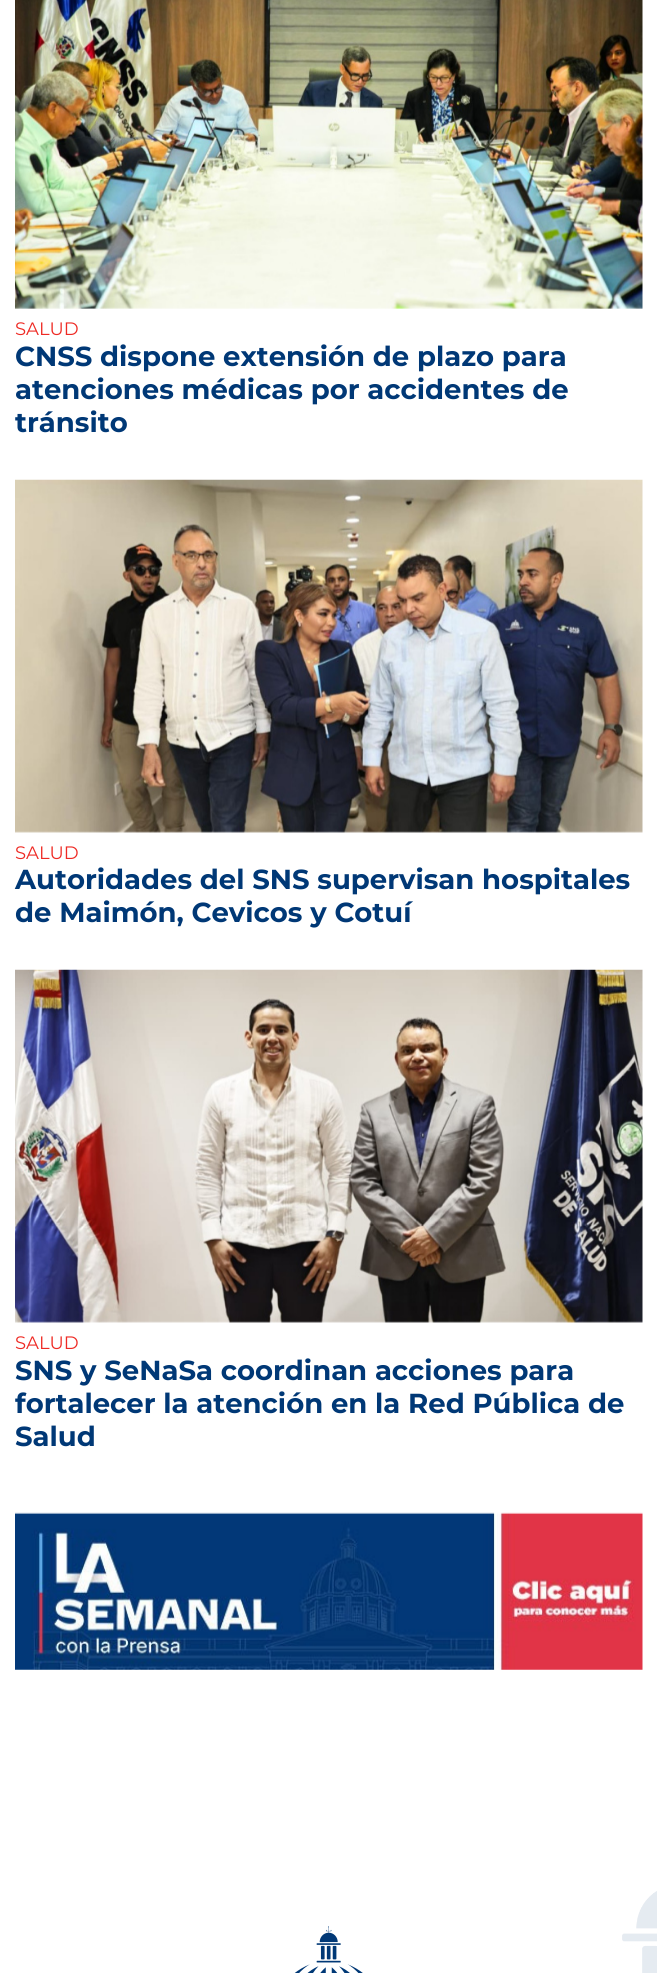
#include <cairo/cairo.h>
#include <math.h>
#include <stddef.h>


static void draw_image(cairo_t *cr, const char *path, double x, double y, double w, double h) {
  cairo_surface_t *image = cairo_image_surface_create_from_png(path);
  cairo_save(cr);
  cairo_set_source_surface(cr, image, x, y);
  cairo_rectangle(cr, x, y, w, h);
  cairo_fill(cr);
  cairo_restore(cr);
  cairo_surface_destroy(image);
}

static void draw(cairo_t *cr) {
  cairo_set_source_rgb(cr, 1, 1, 1);
  cairo_paint(cr);
  draw_image(cr, "images/1.png", 15, 0, 628, 309);
  draw_image(cr, "images/2.png", 15, 479, 628, 354);
  draw_image(cr, "images/3.png", 15, 969, 628, 354);
  draw_image(cr, "images/4.png", 15, 1512, 628, 158);
  draw_image(cr, "images/5.png", 294, 1926, 69, 47);
  draw_image(cr, "images/6.png", 622, 1891, 35, 82);
  cairo_select_font_face(cr, "Montserrat", CAIRO_FONT_SLANT_NORMAL, CAIRO_FONT_WEIGHT_NORMAL);
  cairo_set_font_size(cr, 18);
  cairo_set_source_rgb(cr, 238 / 255.0, 42 / 255.0, 36 / 255.0);
  cairo_move_to(cr, 15, 335);
  cairo_show_text(cr, "SALUD");
  cairo_select_font_face(cr, "Montserrat", CAIRO_FONT_SLANT_NORMAL, CAIRO_FONT_WEIGHT_BOLD);
  cairo_set_font_size(cr, 27.5);
  cairo_set_source_rgb(cr, 0, 56 / 255.0, 118 / 255.0);
  cairo_move_to(cr, 15, 366);
  cairo_show_text(cr, "CNSS dispone extensión de plazo para");
  cairo_move_to(cr, 15, 399);
  cairo_show_text(cr, "atenciones médicas por accidentes de");
  cairo_move_to(cr, 15, 432);
  cairo_show_text(cr, "tránsito");
  cairo_select_font_face(cr, "Montserrat", CAIRO_FONT_SLANT_NORMAL, CAIRO_FONT_WEIGHT_NORMAL);
  cairo_set_font_size(cr, 18);
  cairo_set_source_rgb(cr, 238 / 255.0, 42 / 255.0, 36 / 255.0);
  cairo_move_to(cr, 15, 859);
  cairo_show_text(cr, "SALUD");
  cairo_select_font_face(cr, "Montserrat", CAIRO_FONT_SLANT_NORMAL, CAIRO_FONT_WEIGHT_BOLD);
  cairo_set_font_size(cr, 27.5);
  cairo_set_source_rgb(cr, 0, 56 / 255.0, 118 / 255.0);
  cairo_move_to(cr, 15, 889);
  cairo_show_text(cr, "Autoridades del SNS supervisan hospitales");
  cairo_move_to(cr, 15, 922);
  cairo_show_text(cr, "de Maimón, Cevicos y Cotuí");
  cairo_select_font_face(cr, "Montserrat", CAIRO_FONT_SLANT_NORMAL, CAIRO_FONT_WEIGHT_NORMAL);
  cairo_set_font_size(cr, 18);
  cairo_set_source_rgb(cr, 238 / 255.0, 42 / 255.0, 36 / 255.0);
  cairo_move_to(cr, 15, 1349);
  cairo_show_text(cr, "SALUD");
  cairo_select_font_face(cr, "Montserrat", CAIRO_FONT_SLANT_NORMAL, CAIRO_FONT_WEIGHT_BOLD);
  cairo_set_font_size(cr, 27.5);
  cairo_set_source_rgb(cr, 0, 56 / 255.0, 118 / 255.0);
  cairo_move_to(cr, 15, 1380);
  cairo_show_text(cr, "SNS y SeNaSa coordinan acciones para");
  cairo_move_to(cr, 15, 1413);
  cairo_show_text(cr, "fortalecer la atención en la Red Pública de");
  cairo_move_to(cr, 15, 1446);
  cairo_show_text(cr, "Salud");
}

int main(void) {
  cairo_surface_t *surface = cairo_image_surface_create(CAIRO_FORMAT_RGB24, 657, 1973);
  cairo_t *cr = cairo_create(surface);
  cairo_font_options_t *options = cairo_font_options_create();
  cairo_font_options_set_hint_metrics(options, CAIRO_HINT_METRICS_OFF);
  cairo_font_options_set_hint_style(options, CAIRO_HINT_STYLE_NONE);
  cairo_set_font_options(cr, options);
  cairo_set_miter_limit(cr, 4);
  draw(cr);
  cairo_surface_write_to_png(surface, "out.png");
  cairo_font_options_destroy(options);
  cairo_destroy(cr);
  cairo_surface_destroy(surface);
  return 0;
}
